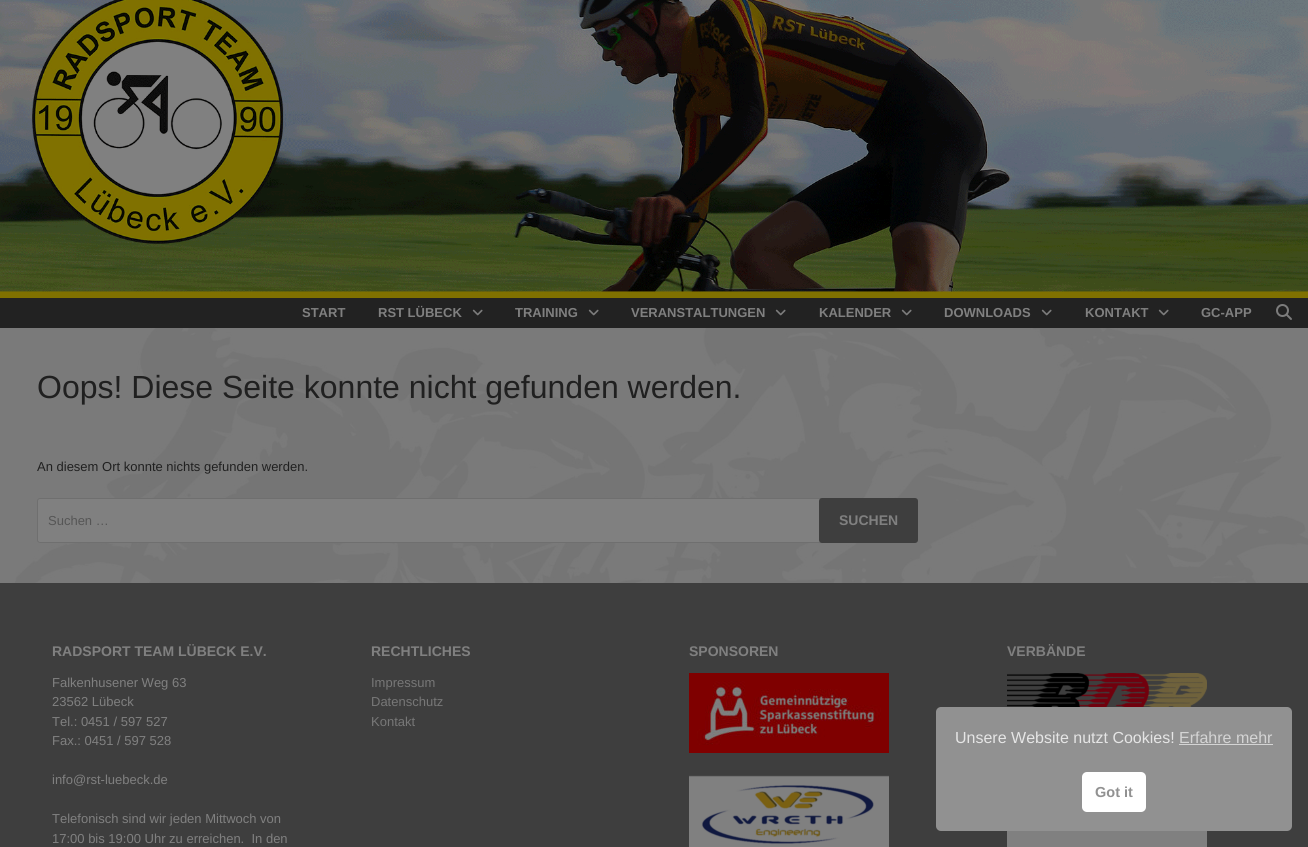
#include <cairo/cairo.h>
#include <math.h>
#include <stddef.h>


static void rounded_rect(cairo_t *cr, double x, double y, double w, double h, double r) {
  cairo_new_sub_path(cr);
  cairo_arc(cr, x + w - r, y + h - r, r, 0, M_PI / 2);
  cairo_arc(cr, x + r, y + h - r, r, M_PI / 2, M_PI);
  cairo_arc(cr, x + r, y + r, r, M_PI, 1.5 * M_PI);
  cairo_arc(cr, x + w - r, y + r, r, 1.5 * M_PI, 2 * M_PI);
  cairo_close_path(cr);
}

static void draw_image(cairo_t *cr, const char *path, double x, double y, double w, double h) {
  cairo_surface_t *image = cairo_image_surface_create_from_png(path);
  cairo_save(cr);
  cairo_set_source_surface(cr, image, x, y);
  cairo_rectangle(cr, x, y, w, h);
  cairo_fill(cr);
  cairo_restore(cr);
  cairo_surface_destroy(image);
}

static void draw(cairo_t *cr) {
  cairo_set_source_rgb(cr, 1, 1, 1);
  cairo_paint(cr);
  draw_image(cr, "images/1.png", 0, 328, 1308, 255);
  draw_image(cr, "images/2.png", 0, 0, 1308, 298);
  cairo_set_source_rgb(cr, 34 / 255.0, 34 / 255.0, 34 / 255.0);
  cairo_rectangle(cr, 0, 298, 1308, 30);
  cairo_fill(cr);
  draw_image(cr, "images/3.png", 472, 309, 11, 7);
  draw_image(cr, "images/3.png", 588, 309, 11, 7);
  draw_image(cr, "images/3.png", 775, 309, 11, 7);
  draw_image(cr, "images/3.png", 901, 309, 11, 7);
  draw_image(cr, "images/3.png", 1041, 309, 11, 7);
  draw_image(cr, "images/3.png", 1158, 309, 11, 7);
  draw_image(cr, "images/4.png", 1276, 304, 16, 16);
  cairo_set_source_rgba(cr, 119 / 255.0, 119 / 255.0, 119 / 255.0, 0.63);
  cairo_rectangle(cr, 0, 328, 1308, 255);
  cairo_fill(cr);
  cairo_set_source_rgb(cr, 128 / 255.0, 128 / 255.0, 128 / 255.0);
  rounded_rect(cr, 37.5, 498.5, 880, 44, 2.5);
  cairo_fill_preserve(cr);
  cairo_set_source_rgb(cr, 111 / 255.0, 111 / 255.0, 111 / 255.0);
  cairo_set_line_width(cr, 1);
  cairo_stroke(cr);
  cairo_set_source_rgb(cr, 62 / 255.0, 62 / 255.0, 62 / 255.0);
  rounded_rect(cr, 819, 498, 99, 45, 3);
  cairo_fill(cr);
  cairo_rectangle(cr, 0, 583, 1308, 264);
  cairo_fill(cr);
  draw_image(cr, "images/5.png", 689, 673, 200, 80);
  draw_image(cr, "images/6.png", 689, 775, 200, 72);
  draw_image(cr, "images/7.png", 1007, 673, 200, 34);
  draw_image(cr, "images/8.png", 1007, 831, 200, 16);
  cairo_set_source_rgb(cr, 145 / 255.0, 145 / 255.0, 145 / 255.0);
  rounded_rect(cr, 936, 707, 356, 124, 5);
  cairo_fill(cr);
  cairo_set_source_rgb(cr, 212 / 255.0, 212 / 255.0, 212 / 255.0);
  cairo_rectangle(cr, 1179, 744, 94, 1);
  cairo_fill(cr);
  cairo_set_source_rgb(cr, 1, 1, 1);
  rounded_rect(cr, 1082, 772, 64, 40, 5);
  cairo_fill(cr);
  cairo_select_font_face(cr, "Liberation Sans", CAIRO_FONT_SLANT_NORMAL, CAIRO_FONT_WEIGHT_BOLD);
  cairo_set_font_size(cr, 13);
  cairo_set_source_rgb(cr, 128 / 255.0, 128 / 255.0, 128 / 255.0);
  cairo_move_to(cr, 302, 317);
  cairo_show_text(cr, "START");
  cairo_move_to(cr, 378, 317);
  cairo_show_text(cr, "RST LÜBECK");
  cairo_move_to(cr, 515, 317);
  cairo_show_text(cr, "TRAINING");
  cairo_move_to(cr, 631, 317);
  cairo_show_text(cr, "VERANSTALTUNGEN");
  cairo_move_to(cr, 819, 317);
  cairo_show_text(cr, "KALENDER");
  cairo_move_to(cr, 944, 317);
  cairo_show_text(cr, "DOWNLOADS");
  cairo_move_to(cr, 1085, 317);
  cairo_show_text(cr, "KONTAKT");
  cairo_move_to(cr, 1201, 317);
  cairo_show_text(cr, "GC-APP");
  cairo_select_font_face(cr, "Liberation Sans", CAIRO_FONT_SLANT_NORMAL, CAIRO_FONT_WEIGHT_NORMAL);
  cairo_set_font_size(cr, 32);
  cairo_set_source_rgb(cr, 32 / 255.0, 32 / 255.0, 32 / 255.0);
  cairo_move_to(cr, 37, 398);
  cairo_show_text(cr, "Oops! Diese Seite konnte nicht gefunden werden.");
  cairo_set_font_size(cr, 13);
  cairo_move_to(cr, 37, 471);
  cairo_show_text(cr, "An diesem Ort konnte nichts gefunden werden.");
  cairo_set_source_rgb(cr, 85 / 255.0, 85 / 255.0, 85 / 255.0);
  cairo_move_to(cr, 48, 525);
  cairo_show_text(cr, "Suchen …");
  cairo_select_font_face(cr, "Liberation Sans", CAIRO_FONT_SLANT_NORMAL, CAIRO_FONT_WEIGHT_BOLD);
  cairo_set_font_size(cr, 14);
  cairo_set_source_rgb(cr, 128 / 255.0, 128 / 255.0, 128 / 255.0);
  cairo_move_to(cr, 839, 525);
  cairo_show_text(cr, "SUCHEN");
  cairo_move_to(cr, 52, 656);
  cairo_show_text(cr, "RADSPORT TEAM LÜBECK E.V.");
  cairo_select_font_face(cr, "Liberation Sans", CAIRO_FONT_SLANT_NORMAL, CAIRO_FONT_WEIGHT_NORMAL);
  cairo_set_font_size(cr, 13);
  cairo_move_to(cr, 52, 687);
  cairo_show_text(cr, "Falkenhusener Weg 63");
  cairo_move_to(cr, 52, 706);
  cairo_show_text(cr, "23562 Lübeck");
  cairo_move_to(cr, 52, 726);
  cairo_show_text(cr, "Tel.: 0451 / 597 527");
  cairo_move_to(cr, 52, 745);
  cairo_show_text(cr, "Fax.: 0451 / 597 528");
  cairo_move_to(cr, 52, 784);
  cairo_show_text(cr, "info@rst-luebeck.de");
  cairo_move_to(cr, 52, 823);
  cairo_show_text(cr, "Telefonisch sind wir jeden Mittwoch von");
  cairo_move_to(cr, 52, 843);
  cairo_show_text(cr, "17:00 bis 19:00 Uhr zu erreichen.  In den");
  cairo_select_font_face(cr, "Liberation Sans", CAIRO_FONT_SLANT_NORMAL, CAIRO_FONT_WEIGHT_BOLD);
  cairo_set_font_size(cr, 14);
  cairo_move_to(cr, 371, 656);
  cairo_show_text(cr, "RECHTLICHES");
  cairo_select_font_face(cr, "Liberation Sans", CAIRO_FONT_SLANT_NORMAL, CAIRO_FONT_WEIGHT_NORMAL);
  cairo_set_font_size(cr, 13);
  cairo_set_source_rgb(cr, 119 / 255.0, 119 / 255.0, 119 / 255.0);
  cairo_move_to(cr, 371, 687);
  cairo_show_text(cr, "Impressum");
  cairo_move_to(cr, 371, 706);
  cairo_show_text(cr, "Datenschutz");
  cairo_move_to(cr, 371, 726);
  cairo_show_text(cr, "Kontakt");
  cairo_select_font_face(cr, "Liberation Sans", CAIRO_FONT_SLANT_NORMAL, CAIRO_FONT_WEIGHT_BOLD);
  cairo_set_font_size(cr, 14);
  cairo_set_source_rgb(cr, 128 / 255.0, 128 / 255.0, 128 / 255.0);
  cairo_move_to(cr, 689, 656);
  cairo_show_text(cr, "SPONSOREN");
  cairo_move_to(cr, 1007, 656);
  cairo_show_text(cr, "VERBÄNDE");
  cairo_select_font_face(cr, "Liberation Sans", CAIRO_FONT_SLANT_NORMAL, CAIRO_FONT_WEIGHT_NORMAL);
  cairo_set_font_size(cr, 16);
  cairo_set_source_rgb(cr, 229 / 255.0, 229 / 255.0, 229 / 255.0);
  cairo_move_to(cr, 955, 743);
  cairo_show_text(cr, "Unsere Website nutzt Cookies!");
  cairo_set_source_rgb(cr, 212 / 255.0, 212 / 255.0, 212 / 255.0);
  cairo_move_to(cr, 1179, 743);
  cairo_show_text(cr, "Erfahre mehr");
  cairo_select_font_face(cr, "Liberation Sans", CAIRO_FONT_SLANT_NORMAL, CAIRO_FONT_WEIGHT_BOLD);
  cairo_set_font_size(cr, 14.5);
  cairo_set_source_rgb(cr, 145 / 255.0, 145 / 255.0, 145 / 255.0);
  cairo_move_to(cr, 1095, 797);
  cairo_show_text(cr, "Got it");
}

int main(void) {
  cairo_surface_t *surface = cairo_image_surface_create(CAIRO_FORMAT_RGB24, 1308, 847);
  cairo_t *cr = cairo_create(surface);
  cairo_font_options_t *options = cairo_font_options_create();
  cairo_font_options_set_hint_metrics(options, CAIRO_HINT_METRICS_OFF);
  cairo_font_options_set_hint_style(options, CAIRO_HINT_STYLE_NONE);
  cairo_set_font_options(cr, options);
  cairo_set_miter_limit(cr, 4);
  draw(cr);
  cairo_surface_write_to_png(surface, "out.png");
  cairo_font_options_destroy(options);
  cairo_destroy(cr);
  cairo_surface_destroy(surface);
  return 0;
}
